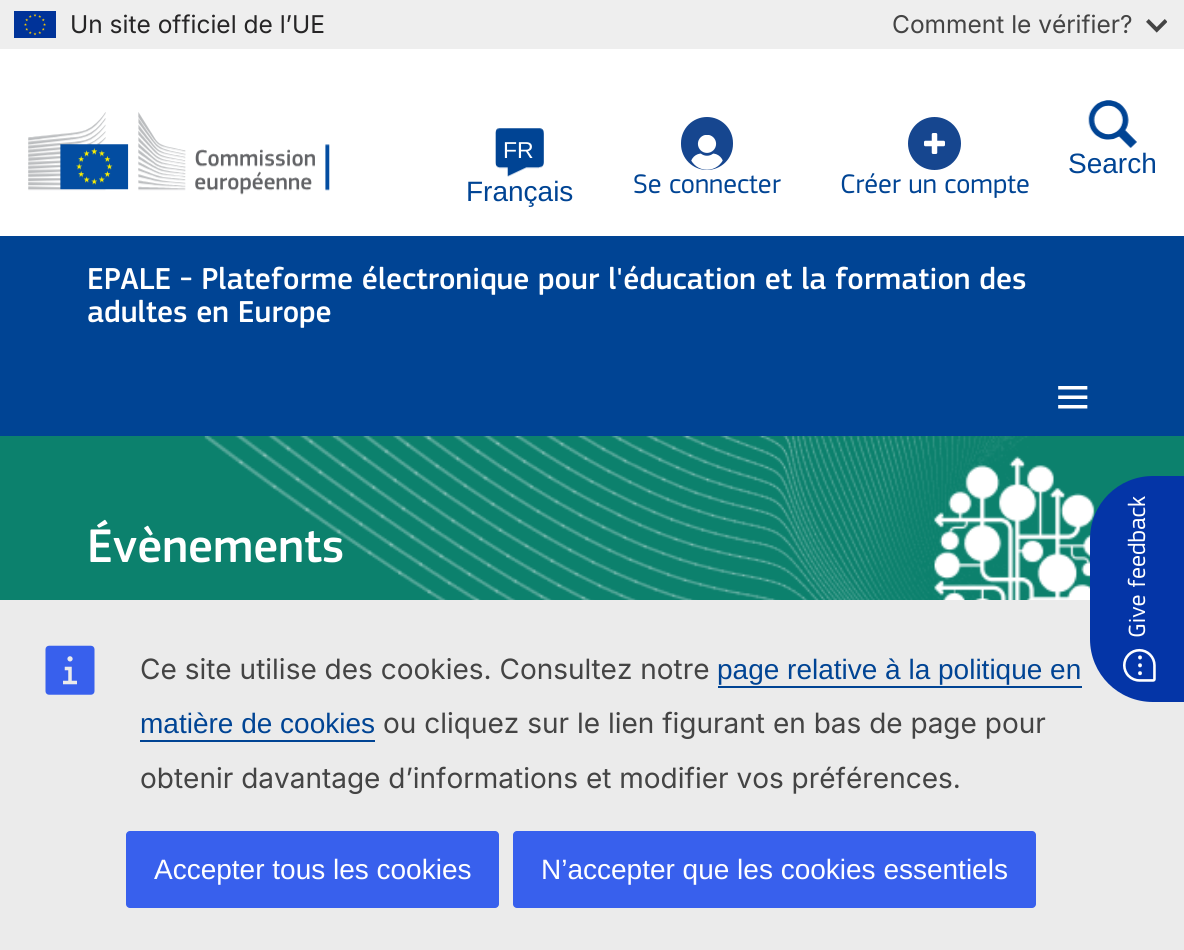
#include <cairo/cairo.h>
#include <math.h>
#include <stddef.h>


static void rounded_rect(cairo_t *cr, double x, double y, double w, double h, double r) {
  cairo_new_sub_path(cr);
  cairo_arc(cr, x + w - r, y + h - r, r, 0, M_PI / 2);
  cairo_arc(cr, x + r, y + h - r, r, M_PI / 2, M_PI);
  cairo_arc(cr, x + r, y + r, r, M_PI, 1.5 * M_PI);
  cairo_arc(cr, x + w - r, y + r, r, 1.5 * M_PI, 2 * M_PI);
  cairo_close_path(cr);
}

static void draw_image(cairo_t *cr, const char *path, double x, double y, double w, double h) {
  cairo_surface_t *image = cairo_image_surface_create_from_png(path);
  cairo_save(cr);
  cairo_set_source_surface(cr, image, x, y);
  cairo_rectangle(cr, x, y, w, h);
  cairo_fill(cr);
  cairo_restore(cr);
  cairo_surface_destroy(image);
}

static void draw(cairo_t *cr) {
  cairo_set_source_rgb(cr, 12 / 255.0, 129 / 255.0, 109 / 255.0);
  cairo_paint(cr);
  cairo_set_source_rgb(cr, 238 / 255.0, 238 / 255.0, 238 / 255.0);
  cairo_rectangle(cr, 0, 0, 1184, 49);
  cairo_fill(cr);
  draw_image(cr, "images/1.png", 14, 11, 42, 27);
  draw_image(cr, "images/2.png", 1146, 19, 21, 14);
  cairo_set_source_rgb(cr, 235 / 255.0, 235 / 255.0, 235 / 255.0);
  cairo_rectangle(cr, 0, 600, 1184, 350);
  cairo_fill(cr);
  draw_image(cr, "images/3.png", 45, 645, 50, 50);
  cairo_set_source_rgb(cr, 0, 68 / 255.0, 148 / 255.0);
  cairo_rectangle(cr, 718, 686, 364, 2);
  cairo_fill(cr);
  cairo_rectangle(cr, 140, 740, 235, 2);
  cairo_fill(cr);
  cairo_set_source_rgb(cr, 56 / 255.0, 96 / 255.0, 237 / 255.0);
  rounded_rect(cr, 126, 831, 373, 77, 4);
  cairo_fill(cr);
  rounded_rect(cr, 513, 831, 523, 77, 4);
  cairo_fill(cr);
  cairo_set_source_rgb(cr, 1, 1, 1);
  cairo_rectangle(cr, 0, 49, 1184, 187);
  cairo_fill(cr);
  draw_image(cr, "images/4.png", 28, 112, 302, 83);
  draw_image(cr, "images/5.png", 495, 128, 49, 49);
  draw_image(cr, "images/6.png", 1088, 100, 49, 48);
  cairo_set_source_rgb(cr, 22 / 255.0, 70 / 255.0, 143 / 255.0);
  rounded_rect(cr, 681, 117, 52, 53, 26);
  cairo_fill(cr);
  draw_image(cr, "images/7.png", 691, 135, 32, 35);
  cairo_arc(cr, 934.5, 143.5, 26.5, 0, 2 * M_PI);
  cairo_fill(cr);
  draw_image(cr, "images/8.png", 924, 133, 21, 21);
  cairo_set_source_rgb(cr, 0, 68 / 255.0, 148 / 255.0);
  cairo_rectangle(cr, 0, 236, 1184, 200);
  cairo_fill(cr);
  draw_image(cr, "images/10.png", 1058, 386, 30, 23);
  cairo_select_font_face(cr, "Inter", CAIRO_FONT_SLANT_NORMAL, CAIRO_FONT_WEIGHT_NORMAL);
  cairo_set_font_size(cr, 24.5);
  cairo_set_source_rgb(cr, 38 / 255.0, 37 / 255.0, 38 / 255.0);
  cairo_move_to(cr, 70, 33);
  cairo_show_text(cr, "Un site officiel de l’UE");
  cairo_set_source_rgb(cr, 68 / 255.0, 68 / 255.0, 68 / 255.0);
  cairo_move_to(cr, 892, 33);
  cairo_show_text(cr, "Comment le vérifier?");
  cairo_set_font_size(cr, 28);
  cairo_move_to(cr, 140, 679);
  cairo_show_text(cr, "Ce site utilise des cookies. Consultez notre");
  cairo_select_font_face(cr, "Liberation Sans", CAIRO_FONT_SLANT_NORMAL, CAIRO_FONT_WEIGHT_NORMAL);
  cairo_set_source_rgb(cr, 0, 68 / 255.0, 148 / 255.0);
  cairo_move_to(cr, 717, 679);
  cairo_show_text(cr, "page relative à la politique en");
  cairo_move_to(cr, 140, 733);
  cairo_show_text(cr, "matière de cookies");
  cairo_select_font_face(cr, "Inter", CAIRO_FONT_SLANT_NORMAL, CAIRO_FONT_WEIGHT_NORMAL);
  cairo_set_source_rgb(cr, 68 / 255.0, 68 / 255.0, 68 / 255.0);
  cairo_move_to(cr, 383, 733);
  cairo_show_text(cr, "ou cliquez sur le lien figurant en bas de page pour");
  cairo_move_to(cr, 140, 788);
  cairo_show_text(cr, "obtenir davantage d’informations et modifier vos préférences.");
  cairo_select_font_face(cr, "Liberation Sans", CAIRO_FONT_SLANT_NORMAL, CAIRO_FONT_WEIGHT_NORMAL);
  cairo_set_source_rgb(cr, 1, 1, 1);
  cairo_move_to(cr, 154, 879);
  cairo_show_text(cr, "Accepter tous les cookies");
  cairo_move_to(cr, 541, 879);
  cairo_show_text(cr, "N’accepter que les cookies essentiels");
  cairo_set_font_size(cr, 23);
  cairo_move_to(cr, 503, 158);
  cairo_show_text(cr, "FR");
  cairo_set_font_size(cr, 28);
  cairo_set_source_rgb(cr, 0, 68 / 255.0, 148 / 255.0);
  cairo_move_to(cr, 466, 201);
  cairo_show_text(cr, "Français");
  cairo_move_to(cr, 1068, 173);
  cairo_show_text(cr, "Search");
  cairo_select_font_face(cr, "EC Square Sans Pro", CAIRO_FONT_SLANT_NORMAL, CAIRO_FONT_WEIGHT_NORMAL);
  cairo_move_to(cr, 633, 193);
  cairo_show_text(cr, "Se connecter");
  cairo_move_to(cr, 840, 193);
  cairo_show_text(cr, "Créer un compte");
  cairo_select_font_face(cr, "EC Square Sans Pro Medium", CAIRO_FONT_SLANT_NORMAL, CAIRO_FONT_WEIGHT_NORMAL);
  cairo_set_font_size(cr, 31.5);
  cairo_set_source_rgb(cr, 1, 1, 1);
  cairo_move_to(cr, 87, 289);
  cairo_show_text(cr, "EPALE - Plateforme électronique pour l'éducation et la formation des");
  cairo_move_to(cr, 87, 322);
  cairo_show_text(cr, "adultes en Europe");
  cairo_set_font_size(cr, 49);
  cairo_move_to(cr, 87, 562);
  cairo_show_text(cr, "Évènements");
  draw_image(cr, "images/11.png", 204, 436, 836, 164);
  draw_image(cr, "images/12.png", 934, 456, 161, 144);
  cairo_set_source_rgb(cr, 4 / 255.0, 53 / 255.0, 167 / 255.0);
  cairo_new_path(cr);
  cairo_move_to(cr, 1153, 476);
  cairo_line_to(cr, 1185, 476);
  cairo_line_to(cr, 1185, 702);
  cairo_line_to(cr, 1153, 702);
  cairo_curve_to(cr, 1118, 702, 1090, 674, 1090, 639);
  cairo_line_to(cr, 1090, 539);
  cairo_curve_to(cr, 1090, 504, 1118, 476, 1153, 476);
  cairo_close_path(cr);
  cairo_fill(cr);
  draw_image(cr, "images/9.png", 1123, 648, 33, 34);
  cairo_select_font_face(cr, "EC Square Sans Pro", CAIRO_FONT_SLANT_NORMAL, CAIRO_FONT_WEIGHT_NORMAL);
  cairo_set_font_size(cr, 24.5);
  cairo_set_source_rgb(cr, 1, 1, 1);
  cairo_save(cr);
  cairo_translate(cr, 1145, 638);
  cairo_rotate(cr, -90 * M_PI / 180);
  cairo_move_to(cr, 0, 0);
  cairo_show_text(cr, "Give feedback");
  cairo_restore(cr);
}

int main(void) {
  cairo_surface_t *surface = cairo_image_surface_create(CAIRO_FORMAT_RGB24, 1184, 950);
  cairo_t *cr = cairo_create(surface);
  cairo_font_options_t *options = cairo_font_options_create();
  cairo_font_options_set_hint_metrics(options, CAIRO_HINT_METRICS_OFF);
  cairo_font_options_set_hint_style(options, CAIRO_HINT_STYLE_NONE);
  cairo_set_font_options(cr, options);
  cairo_set_miter_limit(cr, 4);
  draw(cr);
  cairo_surface_write_to_png(surface, "out.png");
  cairo_font_options_destroy(options);
  cairo_destroy(cr);
  cairo_surface_destroy(surface);
  return 0;
}
